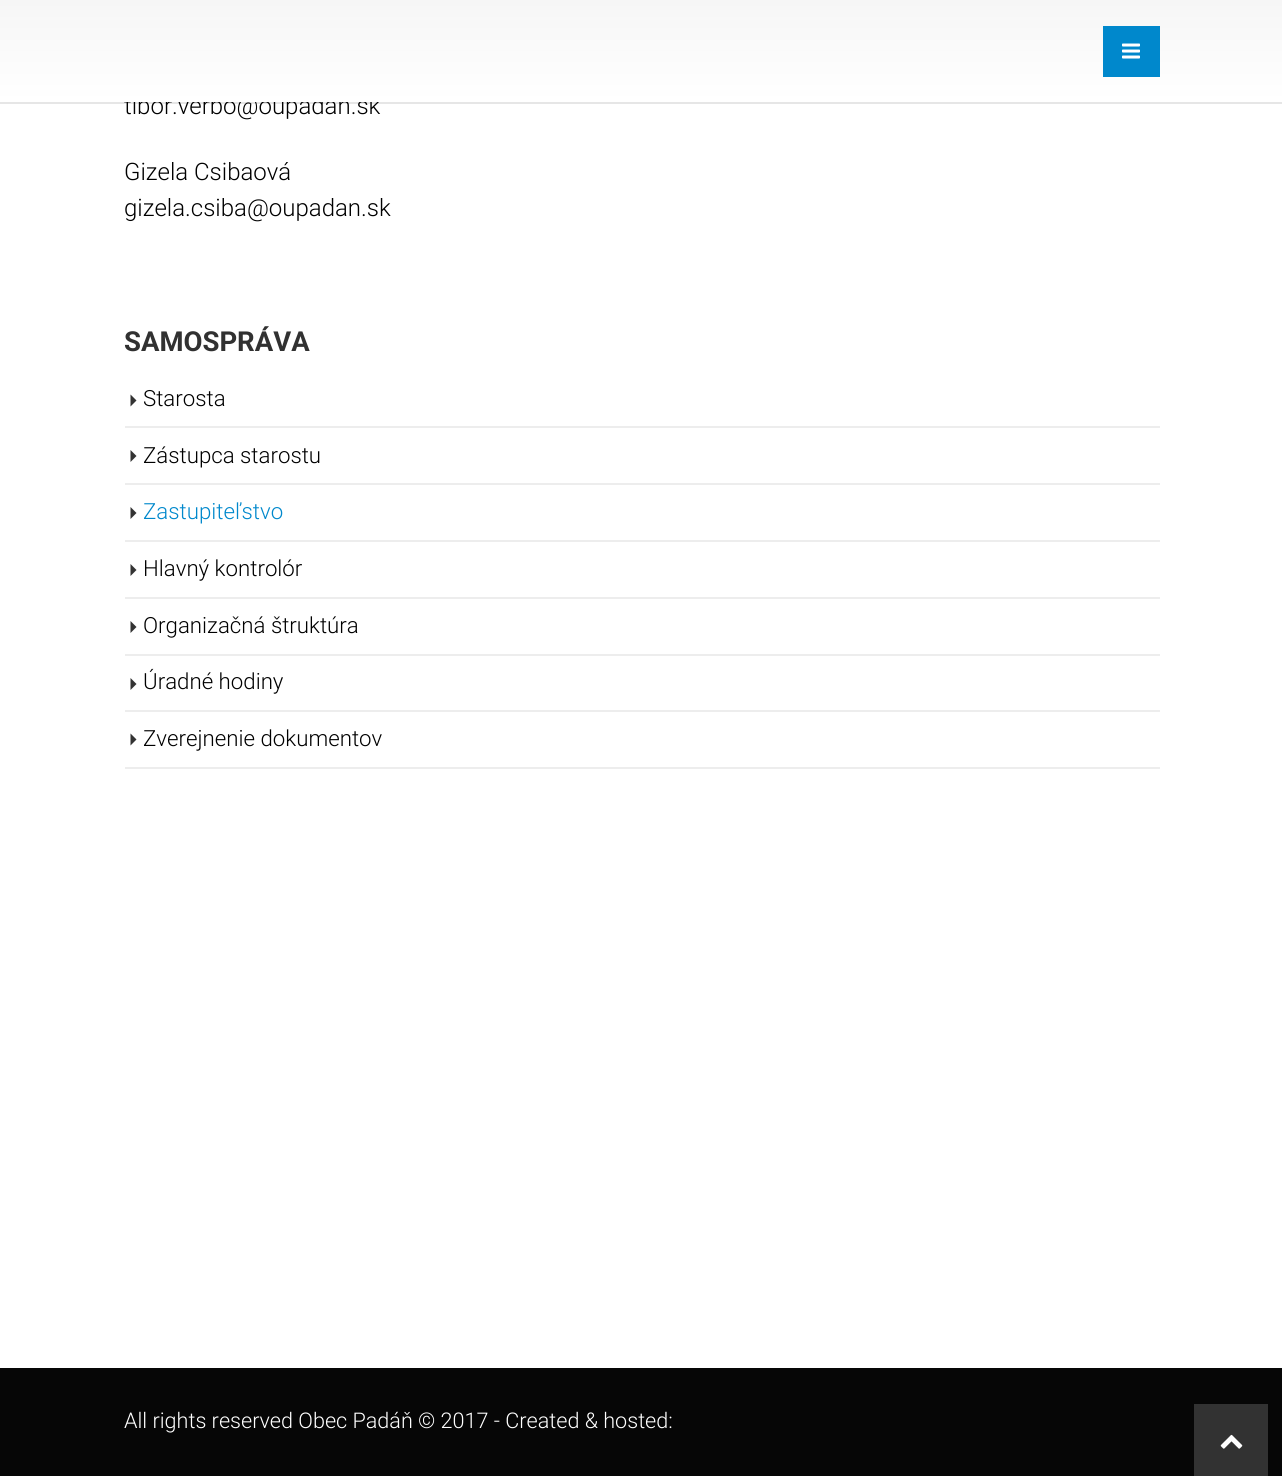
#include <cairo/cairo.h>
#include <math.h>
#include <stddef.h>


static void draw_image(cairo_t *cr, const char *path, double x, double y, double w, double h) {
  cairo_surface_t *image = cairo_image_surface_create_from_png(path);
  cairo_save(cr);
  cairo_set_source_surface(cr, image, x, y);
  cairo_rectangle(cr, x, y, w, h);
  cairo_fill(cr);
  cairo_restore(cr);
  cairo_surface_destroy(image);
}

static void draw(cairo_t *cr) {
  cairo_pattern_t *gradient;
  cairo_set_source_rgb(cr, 1, 1, 1);
  cairo_paint(cr);
  cairo_set_source_rgba(cr, 0, 0, 0, 0.1);
  cairo_new_path(cr);
  cairo_move_to(cr, 0, 102);
  cairo_line_to(cr, 0, 104);
  cairo_line_to(cr, 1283, 104);
  cairo_line_to(cr, 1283, 2);
  cairo_line_to(cr, 1282, 2);
  cairo_line_to(cr, 1282, 102);
  cairo_close_path(cr);
  cairo_fill(cr);
  cairo_set_source_rgb(cr, 237 / 255.0, 237 / 255.0, 237 / 255.0);
  cairo_rectangle(cr, 125, 767, 1035, 2);
  cairo_fill(cr);
  cairo_set_source_rgb(cr, 51 / 255.0, 51 / 255.0, 51 / 255.0);
  cairo_new_path(cr);
  cairo_move_to(cr, 130.5, 406.5);
  cairo_line_to(cr, 130.5, 394.5);
  cairo_line_to(cr, 136.5, 400.5);
  cairo_close_path(cr);
  cairo_fill(cr);
  cairo_set_source_rgb(cr, 237 / 255.0, 237 / 255.0, 237 / 255.0);
  cairo_rectangle(cr, 125, 426, 1035, 2);
  cairo_fill(cr);
  cairo_set_source_rgb(cr, 51 / 255.0, 51 / 255.0, 51 / 255.0);
  cairo_new_path(cr);
  cairo_move_to(cr, 130.5, 462);
  cairo_line_to(cr, 130.5, 450);
  cairo_line_to(cr, 136.5, 456);
  cairo_close_path(cr);
  cairo_fill(cr);
  cairo_set_source_rgb(cr, 237 / 255.0, 237 / 255.0, 237 / 255.0);
  cairo_rectangle(cr, 125, 483, 1035, 2);
  cairo_fill(cr);
  cairo_set_source_rgb(cr, 51 / 255.0, 51 / 255.0, 51 / 255.0);
  cairo_new_path(cr);
  cairo_move_to(cr, 130.5, 519);
  cairo_line_to(cr, 130.5, 507);
  cairo_line_to(cr, 136.5, 513);
  cairo_close_path(cr);
  cairo_fill(cr);
  cairo_set_source_rgb(cr, 237 / 255.0, 237 / 255.0, 237 / 255.0);
  cairo_rectangle(cr, 125, 540, 1035, 2);
  cairo_fill(cr);
  cairo_set_source_rgb(cr, 51 / 255.0, 51 / 255.0, 51 / 255.0);
  cairo_new_path(cr);
  cairo_move_to(cr, 130.5, 576);
  cairo_line_to(cr, 130.5, 564);
  cairo_line_to(cr, 136.5, 570);
  cairo_close_path(cr);
  cairo_fill(cr);
  cairo_set_source_rgb(cr, 237 / 255.0, 237 / 255.0, 237 / 255.0);
  cairo_rectangle(cr, 125, 597, 1035, 2);
  cairo_fill(cr);
  cairo_set_source_rgb(cr, 51 / 255.0, 51 / 255.0, 51 / 255.0);
  cairo_new_path(cr);
  cairo_move_to(cr, 130.5, 633);
  cairo_line_to(cr, 130.5, 621);
  cairo_line_to(cr, 136.5, 627);
  cairo_close_path(cr);
  cairo_fill(cr);
  cairo_set_source_rgb(cr, 237 / 255.0, 237 / 255.0, 237 / 255.0);
  cairo_rectangle(cr, 125, 654, 1035, 2);
  cairo_fill(cr);
  cairo_set_source_rgb(cr, 51 / 255.0, 51 / 255.0, 51 / 255.0);
  cairo_new_path(cr);
  cairo_move_to(cr, 130.5, 690);
  cairo_line_to(cr, 130.5, 678);
  cairo_line_to(cr, 136.5, 684);
  cairo_close_path(cr);
  cairo_fill(cr);
  cairo_set_source_rgb(cr, 237 / 255.0, 237 / 255.0, 237 / 255.0);
  cairo_rectangle(cr, 125, 710, 1035, 2);
  cairo_fill(cr);
  cairo_set_source_rgb(cr, 51 / 255.0, 51 / 255.0, 51 / 255.0);
  cairo_new_path(cr);
  cairo_move_to(cr, 130.5, 745.5);
  cairo_line_to(cr, 130.5, 733.5);
  cairo_line_to(cr, 136.5, 739.5);
  cairo_close_path(cr);
  cairo_fill(cr);
  cairo_set_source_rgb(cr, 6 / 255.0, 6 / 255.0, 6 / 255.0);
  cairo_rectangle(cr, 0, 1368, 1282, 108);
  cairo_fill(cr);
  cairo_set_source_rgb(cr, 50 / 255.0, 50 / 255.0, 50 / 255.0);
  cairo_rectangle(cr, 1194, 1404, 74, 72);
  cairo_fill(cr);
  draw_image(cr, "images/2.png", 1220, 1434, 23, 15);
  cairo_select_font_face(cr, "Roboto Light", CAIRO_FONT_SLANT_NORMAL, CAIRO_FONT_WEIGHT_NORMAL);
  cairo_set_font_size(cr, 24);
  cairo_set_source_rgb(cr, 0, 0, 0);
  cairo_move_to(cr, 124, 114);
  cairo_show_text(cr, "tibor.verbo@oupadan.sk");
  gradient = cairo_pattern_create_linear(641, 0, 641, 102);
  cairo_pattern_add_color_stop_rgba(gradient, 0, 246 / 255.0, 246 / 255.0, 246 / 255.0, 1);
  cairo_pattern_add_color_stop_rgba(gradient, 1, 1, 1, 1, 1);
  cairo_set_source(cr, gradient);
  cairo_pattern_destroy(gradient);
  cairo_rectangle(cr, 0, 0, 1282, 102);
  cairo_fill(cr);
  cairo_set_source_rgb(cr, 0, 136 / 255.0, 204 / 255.0);
  cairo_rectangle(cr, 1103, 26, 57, 51);
  cairo_fill(cr);
  draw_image(cr, "images/1.png", 1122, 43, 18, 16);
  cairo_set_source_rgb(cr, 0, 0, 0);
  cairo_move_to(cr, 124, 180);
  cairo_show_text(cr, "Gizela Csibaová");
  cairo_move_to(cr, 124, 216);
  cairo_show_text(cr, "gizela.csiba@oupadan.sk");
  cairo_select_font_face(cr, "Roboto", CAIRO_FONT_SLANT_NORMAL, CAIRO_FONT_WEIGHT_BOLD);
  cairo_set_font_size(cr, 27.5);
  cairo_set_source_rgb(cr, 49 / 255.0, 49 / 255.0, 49 / 255.0);
  cairo_move_to(cr, 124, 351);
  cairo_show_text(cr, "SAMOSPRÁVA");
  cairo_select_font_face(cr, "Roboto Light", CAIRO_FONT_SLANT_NORMAL, CAIRO_FONT_WEIGHT_NORMAL);
  cairo_set_font_size(cr, 22.25);
  cairo_set_source_rgb(cr, 0, 0, 0);
  cairo_move_to(cr, 143, 406);
  cairo_show_text(cr, "Starosta");
  cairo_move_to(cr, 143, 463);
  cairo_show_text(cr, "Zástupca starostu");
  cairo_set_source_rgb(cr, 0, 136 / 255.0, 204 / 255.0);
  cairo_move_to(cr, 143, 519);
  cairo_show_text(cr, "Zastupiteľstvo");
  cairo_set_source_rgb(cr, 0, 0, 0);
  cairo_move_to(cr, 143, 576);
  cairo_show_text(cr, "Hlavný kontrolór");
  cairo_move_to(cr, 143, 633);
  cairo_show_text(cr, "Organizačná štruktúra");
  cairo_move_to(cr, 143, 689);
  cairo_show_text(cr, "Úradné hodiny");
  cairo_move_to(cr, 143, 746);
  cairo_show_text(cr, "Zverejnenie dokumentov");
  cairo_set_font_size(cr, 21.6);
  cairo_set_source_rgb(cr, 1, 1, 1);
  cairo_move_to(cr, 124, 1428);
  cairo_show_text(cr, "All rights reserved Obec Padáň © 2017 - Created & hosted:");
}

int main(void) {
  cairo_surface_t *surface = cairo_image_surface_create(CAIRO_FORMAT_RGB24, 1282, 1476);
  cairo_t *cr = cairo_create(surface);
  cairo_font_options_t *options = cairo_font_options_create();
  cairo_font_options_set_hint_metrics(options, CAIRO_HINT_METRICS_OFF);
  cairo_font_options_set_hint_style(options, CAIRO_HINT_STYLE_NONE);
  cairo_set_font_options(cr, options);
  cairo_set_miter_limit(cr, 4);
  draw(cr);
  cairo_surface_write_to_png(surface, "out.png");
  cairo_font_options_destroy(options);
  cairo_destroy(cr);
  cairo_surface_destroy(surface);
  return 0;
}
